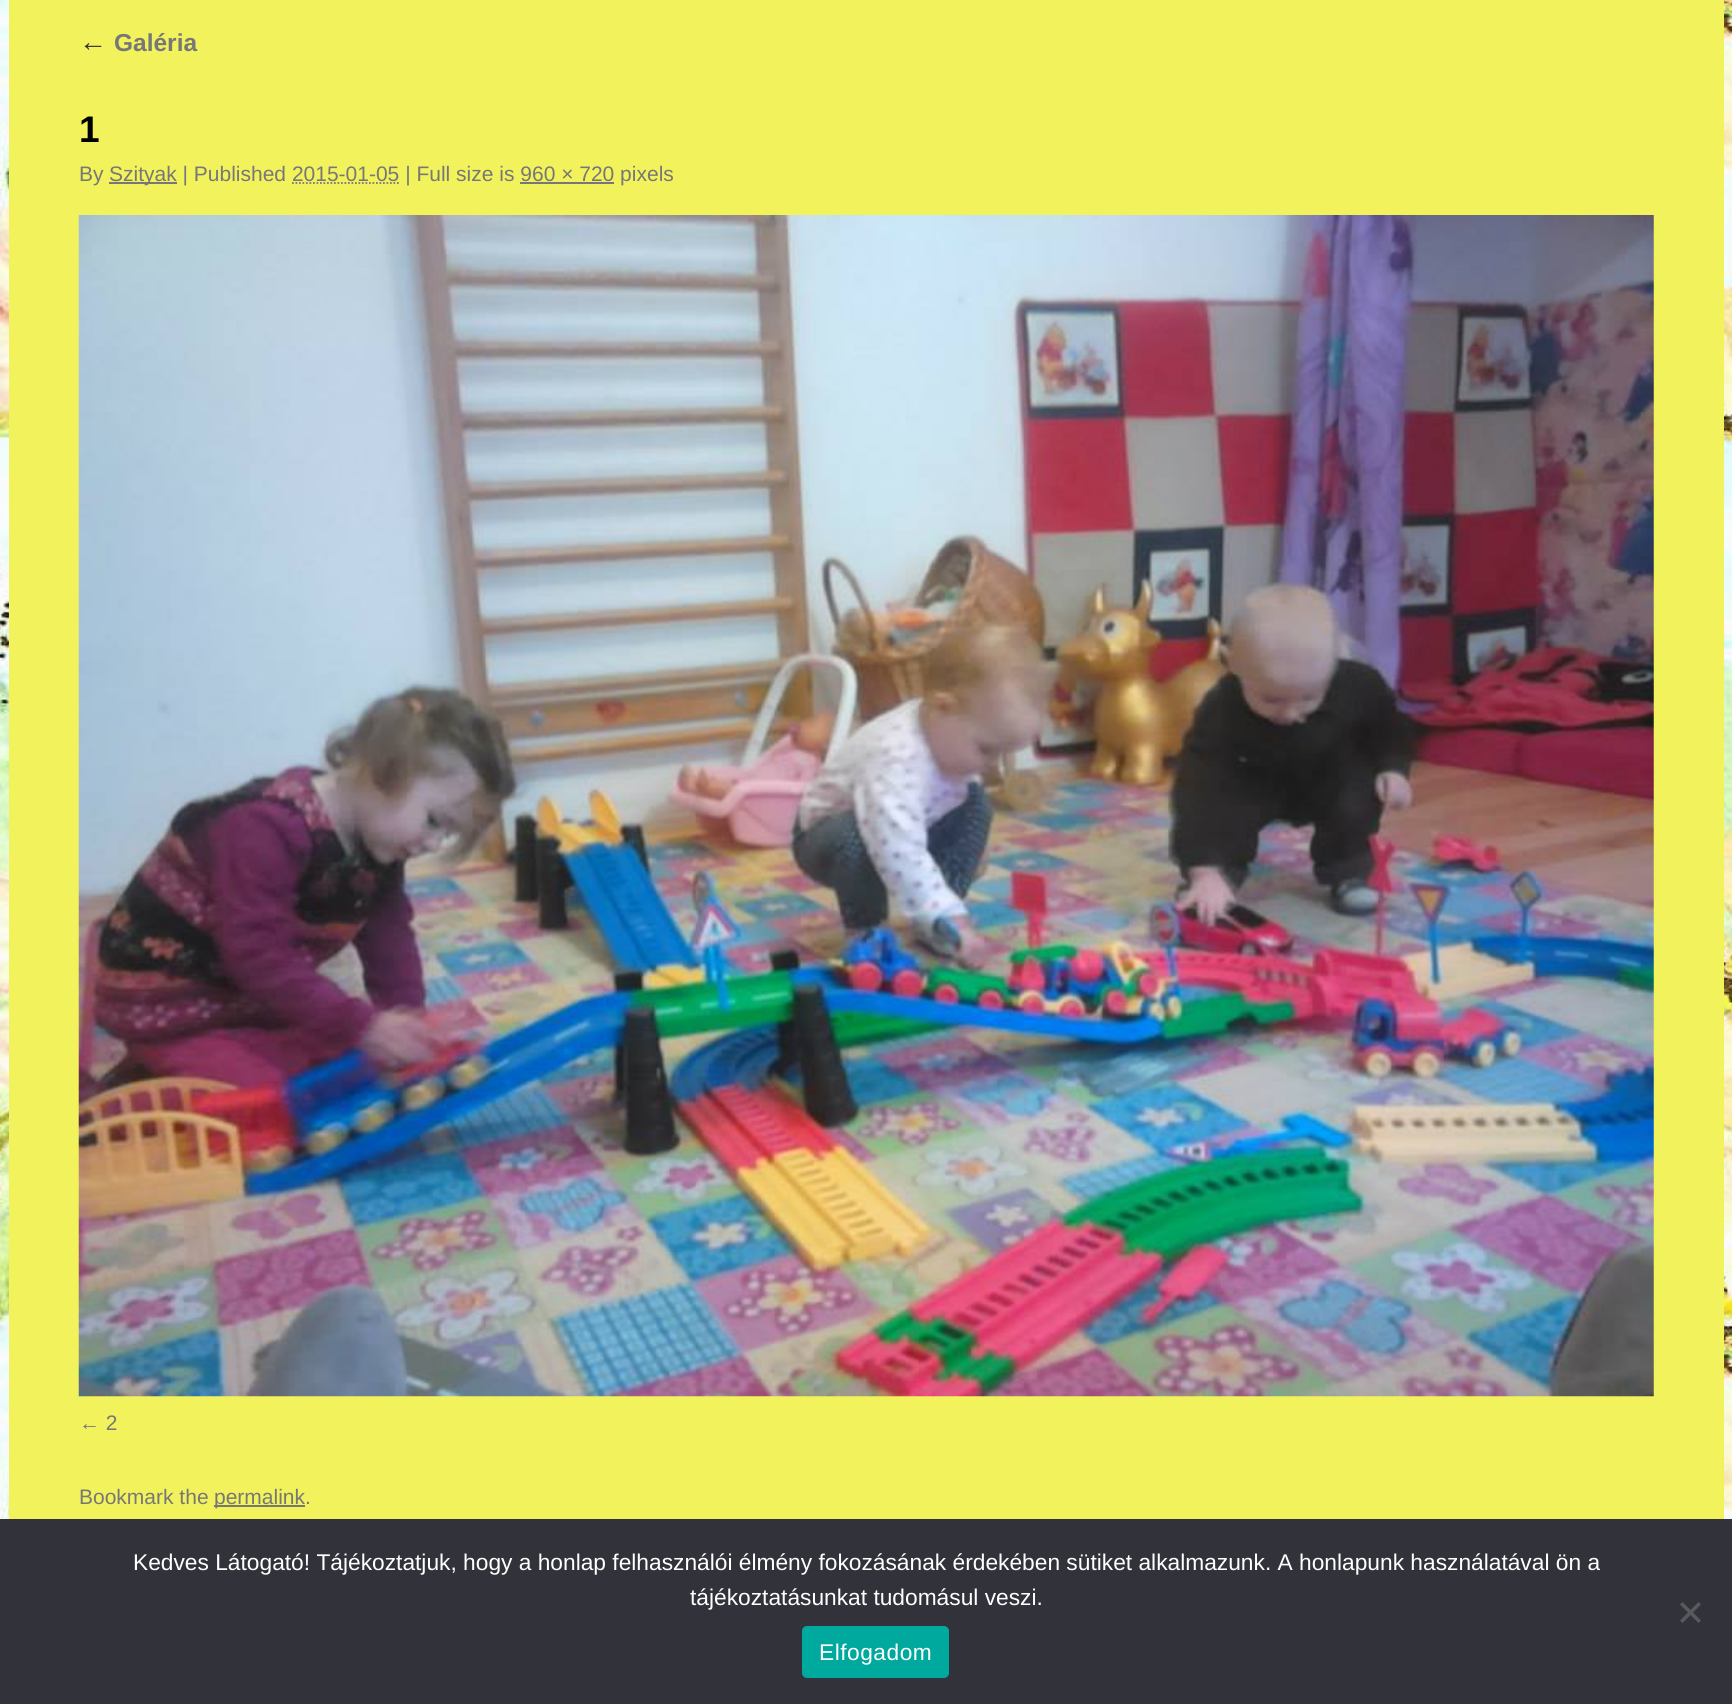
#include <cairo/cairo.h>
#include <math.h>
#include <stddef.h>


static void draw_spaced(cairo_t *cr, double x, double y, const char *s, double letter, double word) {
  cairo_move_to(cr, x, y);
  while (*s) {
    char ch[5] = {0};
    int n = 0;
    do ch[n++] = *s++; while ((*s & 0xC0) == 0x80);
    cairo_show_text(cr, ch);
    cairo_rel_move_to(cr, letter + word * (*ch == ' '), 0);
  }
}

static void rounded_rect(cairo_t *cr, double x, double y, double w, double h, double r) {
  cairo_new_sub_path(cr);
  cairo_arc(cr, x + w - r, y + h - r, r, 0, M_PI / 2);
  cairo_arc(cr, x + r, y + h - r, r, M_PI / 2, M_PI);
  cairo_arc(cr, x + r, y + r, r, M_PI, 1.5 * M_PI);
  cairo_arc(cr, x + w - r, y + r, r, 1.5 * M_PI, 2 * M_PI);
  cairo_close_path(cr);
}

static void draw_image(cairo_t *cr, const char *path, double x, double y, double w, double h) {
  cairo_surface_t *image = cairo_image_surface_create_from_png(path);
  cairo_save(cr);
  cairo_set_source_surface(cr, image, x, y);
  cairo_rectangle(cr, x, y, w, h);
  cairo_fill(cr);
  cairo_restore(cr);
  cairo_surface_destroy(image);
}

static void draw(cairo_t *cr) {
  cairo_set_source_rgb(cr, 1, 1, 1);
  cairo_paint(cr);
  draw_image(cr, "images/1.png", 0, 0, 1732, 1519);
  cairo_set_source_rgb(cr, 242 / 255.0, 242 / 255.0, 92 / 255.0);
  cairo_rectangle(cr, 9, 0, 1715, 1519);
  cairo_fill(cr);
  cairo_set_source_rgb(cr, 119 / 255.0, 119 / 255.0, 119 / 255.0);
  cairo_rectangle(cr, 109, 182, 68, 2);
  cairo_fill(cr);
  cairo_new_path(cr);
  cairo_move_to(cr, 292, 183);
  cairo_line_to(cr, 399.5, 183);
  cairo_set_line_width(cr, 1.8);
  cairo_set_dash(cr, (double[]){1.75, 1.75}, 2, 0);
  cairo_stroke(cr);
  cairo_rectangle(cr, 520, 182, 94, 2);
  cairo_fill(cr);
  draw_image(cr, "images/2.png", 78, 215, 1576, 1182);
  cairo_rectangle(cr, 214, 1505, 91, 2);
  cairo_fill(cr);
  cairo_set_source_rgb(cr, 50 / 255.0, 50 / 255.0, 58 / 255.0);
  cairo_rectangle(cr, 0, 1519, 1732, 185);
  cairo_fill(cr);
  cairo_set_source_rgb(cr, 89 / 255.0, 89 / 255.0, 93 / 255.0);
  cairo_new_path(cr);
  cairo_move_to(cr, 1698.5, 1602);
  cairo_line_to(cr, 1701, 1604.5);
  cairo_line_to(cr, 1682.5, 1623);
  cairo_line_to(cr, 1680, 1620.5);
  cairo_close_path(cr);
  cairo_fill(cr);
  cairo_new_path(cr);
  cairo_move_to(cr, 1680, 1604.5);
  cairo_line_to(cr, 1682.5, 1602);
  cairo_line_to(cr, 1701, 1620.5);
  cairo_line_to(cr, 1698.5, 1623);
  cairo_close_path(cr);
  cairo_fill(cr);
  cairo_set_source_rgb(cr, 0, 169 / 255.0, 157 / 255.0);
  rounded_rect(cr, 802, 1626, 147, 52, 5);
  cairo_fill(cr);
  cairo_select_font_face(cr, "Liberation Serif", CAIRO_FONT_SLANT_ITALIC, CAIRO_FONT_WEIGHT_NORMAL);
  cairo_set_font_size(cr, 28);
  cairo_set_source_rgb(cr, 51 / 255.0, 51 / 255.0, 51 / 255.0);
  cairo_move_to(cr, 79, 51);
  cairo_show_text(cr, "←");
  cairo_select_font_face(cr, "Liberation Sans", CAIRO_FONT_SLANT_NORMAL, CAIRO_FONT_WEIGHT_BOLD);
  cairo_set_font_size(cr, 24.5);
  cairo_set_source_rgb(cr, 119 / 255.0, 119 / 255.0, 119 / 255.0);
  cairo_move_to(cr, 114, 51);
  cairo_show_text(cr, "Galéria");
  cairo_set_font_size(cr, 37);
  cairo_set_source_rgb(cr, 0, 0, 0);
  cairo_move_to(cr, 79, 142);
  cairo_show_text(cr, "1");
  cairo_select_font_face(cr, "Liberation Sans", CAIRO_FONT_SLANT_NORMAL, CAIRO_FONT_WEIGHT_NORMAL);
  cairo_set_font_size(cr, 21);
  cairo_set_source_rgb(cr, 119 / 255.0, 119 / 255.0, 119 / 255.0);
  cairo_move_to(cr, 79, 181);
  cairo_show_text(cr, "By");
  cairo_move_to(cr, 109, 181);
  cairo_show_text(cr, "Szityak | Published 2015-01-05 | Full size is 960 × 720 pixels");
  cairo_move_to(cr, 79, 1430);
  cairo_show_text(cr, "← 2");
  cairo_move_to(cr, 79, 1504);
  cairo_show_text(cr, "Bookmark the");
  cairo_move_to(cr, 214, 1504);
  cairo_show_text(cr, "permalink.");
  cairo_set_font_size(cr, 22.75);
  cairo_set_source_rgb(cr, 1, 1, 1);
  cairo_move_to(cr, 133, 1570);
  cairo_show_text(cr, "Kedves Látogató! Tájékoztatjuk, hogy a honlap felhasználói élmény fokozásának érdekében sütiket alkalmazunk. A honlapunk használatával ön a");
  cairo_move_to(cr, 690, 1605);
  cairo_show_text(cr, "tájékoztatásunkat tudomásul veszi.");
  draw_spaced(cr, 819, 1660, "Elfogadom", 0.5, 0);
}

int main(void) {
  cairo_surface_t *surface = cairo_image_surface_create(CAIRO_FORMAT_RGB24, 1732, 1704);
  cairo_t *cr = cairo_create(surface);
  cairo_font_options_t *options = cairo_font_options_create();
  cairo_font_options_set_hint_metrics(options, CAIRO_HINT_METRICS_OFF);
  cairo_font_options_set_hint_style(options, CAIRO_HINT_STYLE_NONE);
  cairo_set_font_options(cr, options);
  cairo_set_miter_limit(cr, 4);
  draw(cr);
  cairo_surface_write_to_png(surface, "out.png");
  cairo_font_options_destroy(options);
  cairo_destroy(cr);
  cairo_surface_destroy(surface);
  return 0;
}
